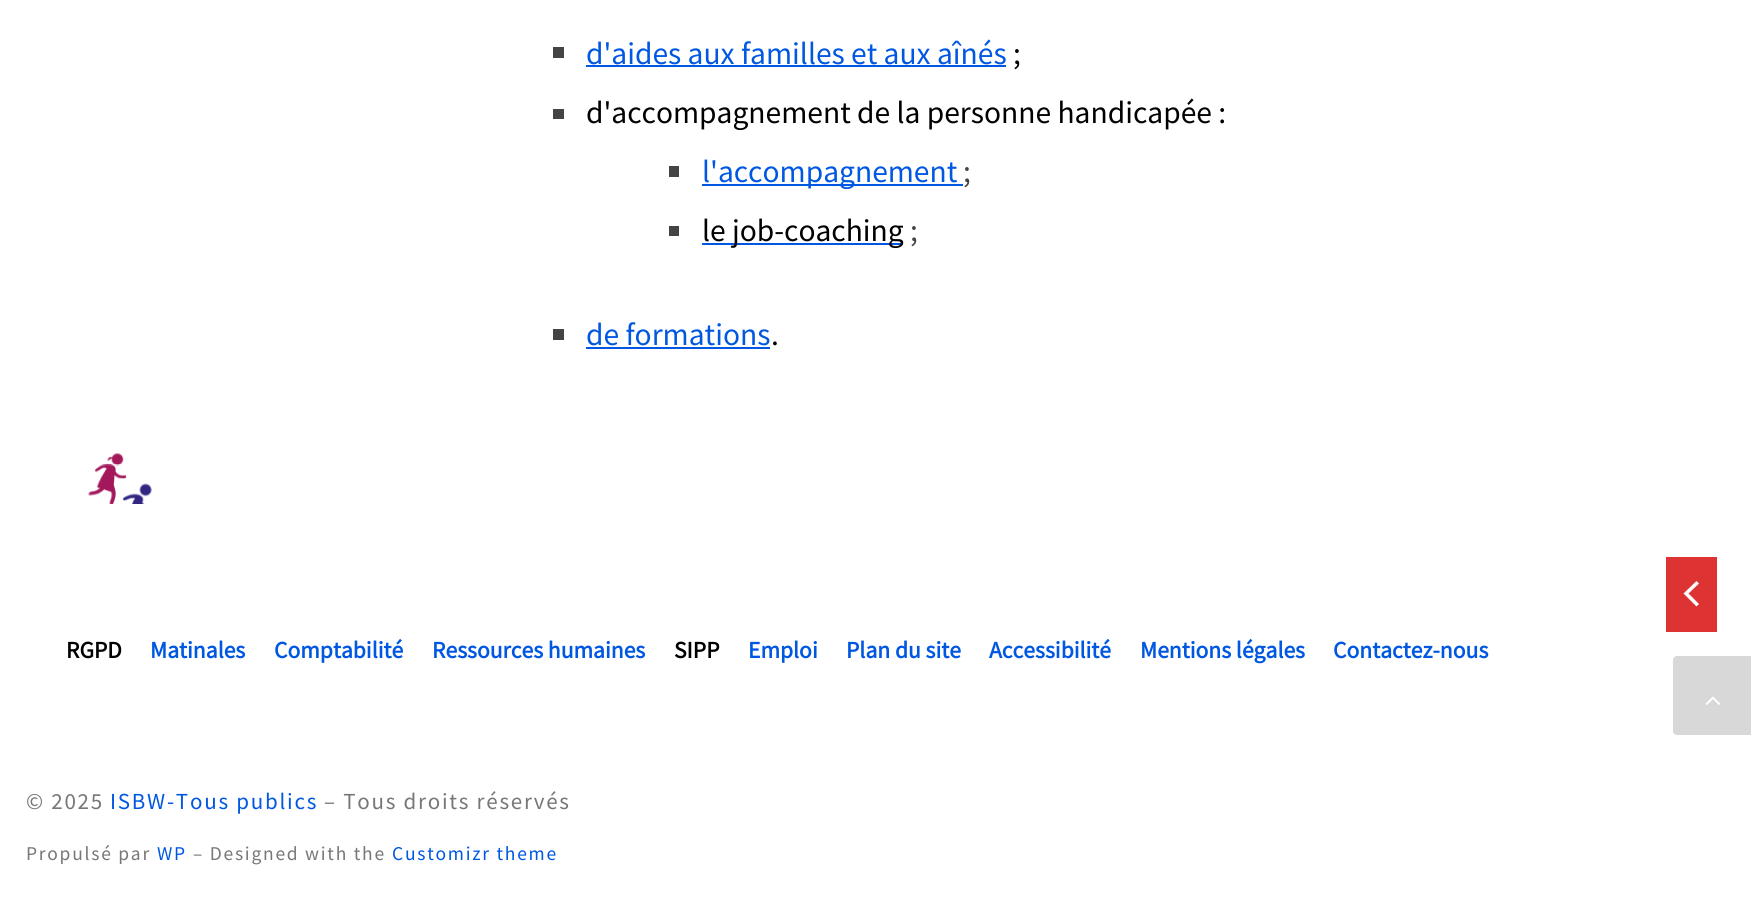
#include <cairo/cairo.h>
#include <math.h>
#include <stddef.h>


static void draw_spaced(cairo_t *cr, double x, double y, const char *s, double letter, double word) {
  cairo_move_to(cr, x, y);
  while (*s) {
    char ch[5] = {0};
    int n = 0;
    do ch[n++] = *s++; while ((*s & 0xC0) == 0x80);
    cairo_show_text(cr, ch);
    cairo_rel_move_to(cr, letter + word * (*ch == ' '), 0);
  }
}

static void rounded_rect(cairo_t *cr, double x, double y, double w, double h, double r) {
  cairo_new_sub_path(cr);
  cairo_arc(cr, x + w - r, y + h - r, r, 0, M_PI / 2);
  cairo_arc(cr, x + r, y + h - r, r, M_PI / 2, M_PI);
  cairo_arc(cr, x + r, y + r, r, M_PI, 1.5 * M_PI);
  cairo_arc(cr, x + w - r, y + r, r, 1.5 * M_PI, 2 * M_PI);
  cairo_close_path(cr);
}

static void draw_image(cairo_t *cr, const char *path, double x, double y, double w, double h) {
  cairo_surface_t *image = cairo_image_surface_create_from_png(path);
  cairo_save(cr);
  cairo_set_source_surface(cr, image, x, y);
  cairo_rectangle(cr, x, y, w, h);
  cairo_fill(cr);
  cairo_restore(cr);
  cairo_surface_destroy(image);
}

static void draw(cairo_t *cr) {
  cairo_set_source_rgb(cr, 1, 1, 1);
  cairo_paint(cr);
  draw_image(cr, "images/1.png", 88, 453, 64, 51);
  cairo_set_source_rgb(cr, 68 / 255.0, 68 / 255.0, 68 / 255.0);
  cairo_rectangle(cr, 553, 47, 11, 11);
  cairo_fill(cr);
  cairo_set_source_rgb(cr, 0, 87 / 255.0, 225 / 255.0);
  cairo_rectangle(cr, 586, 65, 420, 2);
  cairo_fill(cr);
  cairo_set_source_rgb(cr, 68 / 255.0, 68 / 255.0, 68 / 255.0);
  cairo_rectangle(cr, 553, 109, 11, 10);
  cairo_fill(cr);
  cairo_rectangle(cr, 669, 166, 10, 11);
  cairo_fill(cr);
  cairo_set_source_rgb(cr, 0, 87 / 255.0, 225 / 255.0);
  cairo_rectangle(cr, 702, 184, 261, 2);
  cairo_fill(cr);
  cairo_set_source_rgb(cr, 68 / 255.0, 68 / 255.0, 68 / 255.0);
  cairo_rectangle(cr, 669, 226, 10, 10);
  cairo_fill(cr);
  cairo_set_source_rgb(cr, 0, 87 / 255.0, 225 / 255.0);
  cairo_rectangle(cr, 702, 243, 201, 2);
  cairo_fill(cr);
  cairo_set_source_rgb(cr, 68 / 255.0, 68 / 255.0, 68 / 255.0);
  cairo_rectangle(cr, 553, 329, 11, 11);
  cairo_fill(cr);
  cairo_set_source_rgb(cr, 0, 87 / 255.0, 225 / 255.0);
  cairo_rectangle(cr, 586, 347, 184, 2);
  cairo_fill(cr);
  cairo_set_source_rgb(cr, 221 / 255.0, 51 / 255.0, 51 / 255.0);
  cairo_rectangle(cr, 1666, 557, 51, 75);
  cairo_fill(cr);
  cairo_set_source_rgb(cr, 1, 1, 1);
  cairo_new_path(cr);
  cairo_move_to(cr, 1699, 583.5);
  cairo_line_to(cr, 1688.5, 593.5);
  cairo_line_to(cr, 1699, 604);
  cairo_line_to(cr, 1696.5, 606.5);
  cairo_line_to(cr, 1683.5, 593.5);
  cairo_line_to(cr, 1696.5, 581);
  cairo_close_path(cr);
  cairo_fill(cr);
  cairo_set_source_rgb(cr, 216 / 255.0, 216 / 255.0, 216 / 255.0);
  rounded_rect(cr, 1673, 656, 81, 79, 4);
  cairo_fill(cr);
  draw_image(cr, "images/2.png", 1705, 696, 16, 9);
  cairo_select_font_face(cr, "Source Sans Pro", CAIRO_FONT_SLANT_NORMAL, CAIRO_FONT_WEIGHT_NORMAL);
  cairo_set_font_size(cr, 31.5);
  cairo_set_source_rgb(cr, 0, 87 / 255.0, 225 / 255.0);
  cairo_move_to(cr, 586, 64);
  cairo_show_text(cr, "d'aides aux familles et aux aînés");
  cairo_set_source_rgb(cr, 0, 0, 0);
  cairo_move_to(cr, 1013, 64);
  cairo_show_text(cr, ";");
  cairo_move_to(cr, 586, 123);
  cairo_show_text(cr, "d'accompagnement de la personne handicapée :");
  cairo_set_source_rgb(cr, 0, 87 / 255.0, 225 / 255.0);
  cairo_move_to(cr, 702, 182);
  cairo_show_text(cr, "l'accompagnement");
  cairo_set_source_rgb(cr, 68 / 255.0, 68 / 255.0, 68 / 255.0);
  cairo_move_to(cr, 963, 182);
  cairo_show_text(cr, ";");
  cairo_set_source_rgb(cr, 0, 0, 0);
  cairo_move_to(cr, 702, 241);
  cairo_show_text(cr, "le job-coaching");
  cairo_set_source_rgb(cr, 68 / 255.0, 68 / 255.0, 68 / 255.0);
  cairo_move_to(cr, 910, 241);
  cairo_show_text(cr, ";");
  cairo_set_source_rgb(cr, 0, 87 / 255.0, 225 / 255.0);
  cairo_move_to(cr, 586, 345);
  cairo_show_text(cr, "de formations");
  cairo_set_source_rgb(cr, 0, 0, 0);
  cairo_move_to(cr, 771, 345);
  cairo_show_text(cr, ".");
  cairo_select_font_face(cr, "Source Sans Pro", CAIRO_FONT_SLANT_NORMAL, CAIRO_FONT_WEIGHT_BOLD);
  cairo_set_font_size(cr, 23.6);
  cairo_move_to(cr, 66, 658);
  cairo_show_text(cr, "RGPD");
  cairo_set_source_rgb(cr, 0, 87 / 255.0, 225 / 255.0);
  cairo_move_to(cr, 150, 658);
  cairo_show_text(cr, "Matinales");
  cairo_move_to(cr, 274, 658);
  cairo_show_text(cr, "Comptabilité");
  cairo_move_to(cr, 432, 658);
  cairo_show_text(cr, "Ressources humaines");
  cairo_set_source_rgb(cr, 0, 0, 0);
  cairo_move_to(cr, 674, 658);
  cairo_show_text(cr, "SIPP");
  cairo_set_source_rgb(cr, 0, 87 / 255.0, 225 / 255.0);
  cairo_move_to(cr, 748, 658);
  cairo_show_text(cr, "Emploi");
  cairo_move_to(cr, 846, 658);
  cairo_show_text(cr, "Plan du site");
  cairo_move_to(cr, 989, 658);
  cairo_show_text(cr, "Accessibilité");
  cairo_move_to(cr, 1140, 658);
  cairo_show_text(cr, "Mentions légales");
  cairo_move_to(cr, 1333, 658);
  cairo_show_text(cr, "Contactez-nous");
  cairo_select_font_face(cr, "Source Sans Pro", CAIRO_FONT_SLANT_NORMAL, CAIRO_FONT_WEIGHT_NORMAL);
  cairo_set_font_size(cr, 23);
  cairo_set_source_rgb(cr, 119 / 255.0, 119 / 255.0, 119 / 255.0);
  draw_spaced(cr, 26, 809, "© 2025", 1.75, 0);
  cairo_set_source_rgb(cr, 0, 87 / 255.0, 225 / 255.0);
  draw_spaced(cr, 110, 809, "ISBW-Tous publics", 1.75, 0);
  cairo_set_source_rgb(cr, 119 / 255.0, 119 / 255.0, 119 / 255.0);
  draw_spaced(cr, 324, 809, "– Tous droits réservés", 1.75, 0);
  cairo_set_font_size(cr, 19.5);
  draw_spaced(cr, 26, 860, "Propulsé par", 1.75, 0);
  cairo_set_source_rgb(cr, 0, 87 / 255.0, 225 / 255.0);
  draw_spaced(cr, 157, 860, "WP", 1.75, 0);
  cairo_set_source_rgb(cr, 119 / 255.0, 119 / 255.0, 119 / 255.0);
  draw_spaced(cr, 193, 860, "– Designed with the", 1.75, 0);
  cairo_set_source_rgb(cr, 0, 87 / 255.0, 225 / 255.0);
  draw_spaced(cr, 392, 860, "Customizr theme", 1.75, 0);
}

int main(void) {
  cairo_surface_t *surface = cairo_image_surface_create(CAIRO_FORMAT_RGB24, 1751, 910);
  cairo_t *cr = cairo_create(surface);
  cairo_font_options_t *options = cairo_font_options_create();
  cairo_font_options_set_hint_metrics(options, CAIRO_HINT_METRICS_OFF);
  cairo_font_options_set_hint_style(options, CAIRO_HINT_STYLE_NONE);
  cairo_set_font_options(cr, options);
  cairo_set_miter_limit(cr, 4);
  draw(cr);
  cairo_surface_write_to_png(surface, "out.png");
  cairo_font_options_destroy(options);
  cairo_destroy(cr);
  cairo_surface_destroy(surface);
  return 0;
}
